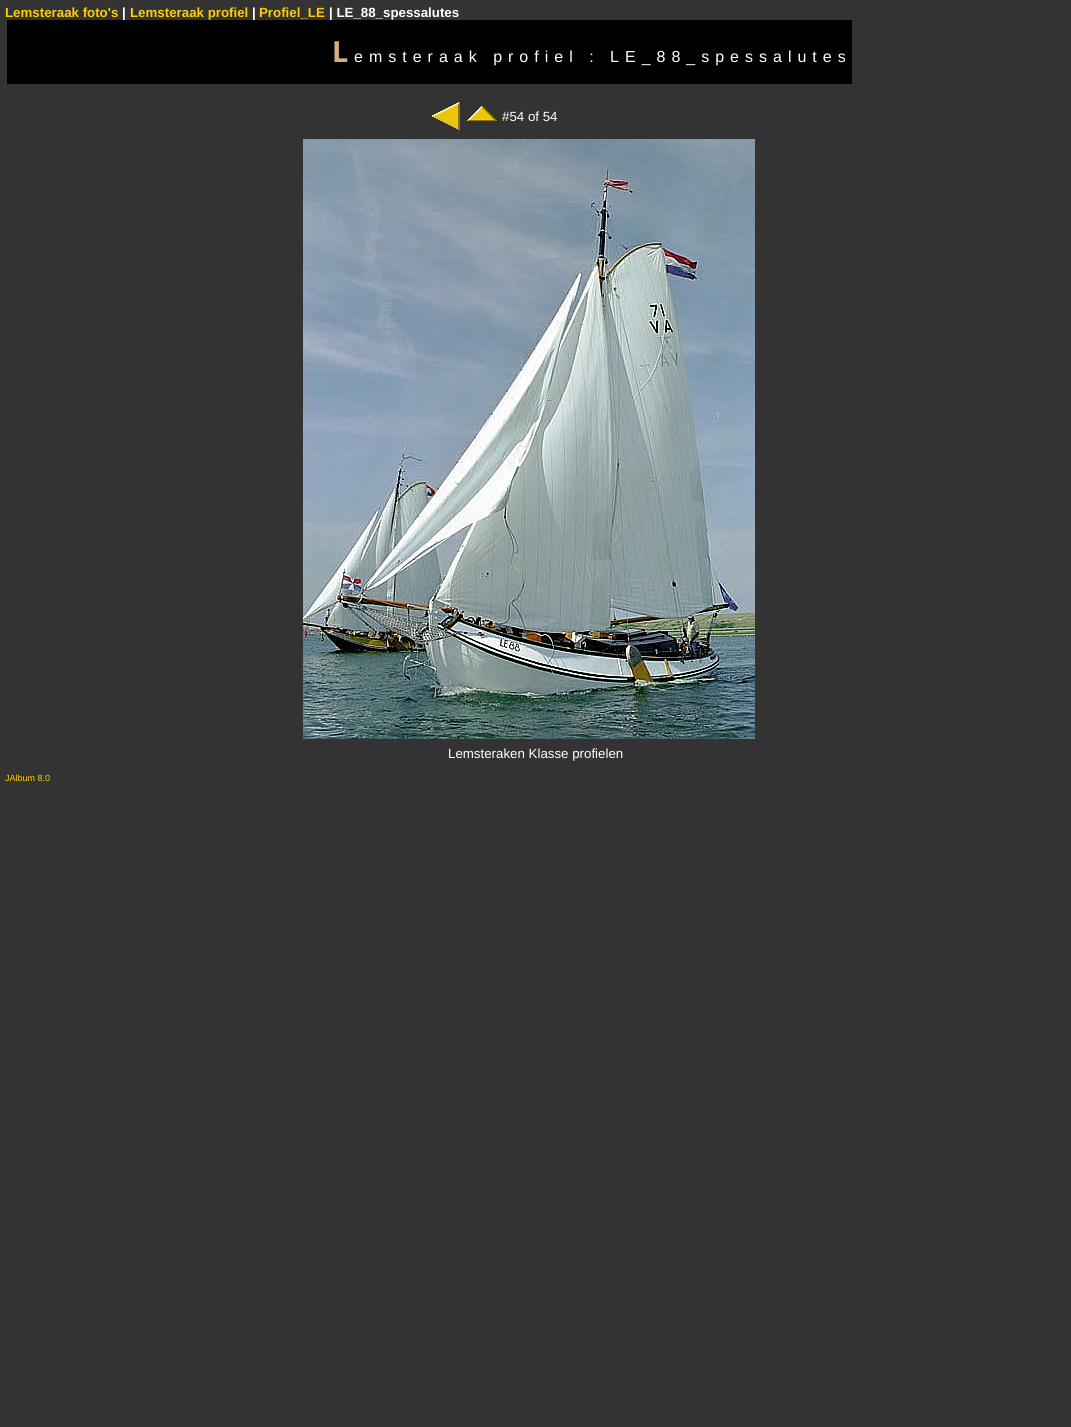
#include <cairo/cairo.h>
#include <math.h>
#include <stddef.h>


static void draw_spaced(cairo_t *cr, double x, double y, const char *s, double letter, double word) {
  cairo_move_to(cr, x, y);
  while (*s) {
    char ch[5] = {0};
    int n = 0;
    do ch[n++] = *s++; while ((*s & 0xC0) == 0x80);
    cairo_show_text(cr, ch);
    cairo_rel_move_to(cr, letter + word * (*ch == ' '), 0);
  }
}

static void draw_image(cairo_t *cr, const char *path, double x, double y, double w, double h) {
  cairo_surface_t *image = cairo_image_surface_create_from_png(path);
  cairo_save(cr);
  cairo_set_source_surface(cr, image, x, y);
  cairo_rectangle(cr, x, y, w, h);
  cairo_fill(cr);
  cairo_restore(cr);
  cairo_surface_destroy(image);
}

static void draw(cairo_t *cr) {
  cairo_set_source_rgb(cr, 51 / 255.0, 51 / 255.0, 51 / 255.0);
  cairo_paint(cr);
  cairo_set_source_rgb(cr, 0, 0, 0);
  cairo_rectangle(cr, 7, 20, 845, 64);
  cairo_fill(cr);
  draw_image(cr, "images/1.png", 432, 102, 28, 28);
  draw_image(cr, "images/2.png", 467, 106, 30, 15);
  draw_image(cr, "images/3.png", 303, 139, 452, 600);
  cairo_select_font_face(cr, "Liberation Sans", CAIRO_FONT_SLANT_NORMAL, CAIRO_FONT_WEIGHT_BOLD);
  cairo_set_font_size(cr, 13.3);
  cairo_set_source_rgb(cr, 1, 204 / 255.0, 0);
  cairo_move_to(cr, 5, 17);
  cairo_show_text(cr, "Lemsteraak foto's");
  cairo_set_source_rgb(cr, 1, 1, 1);
  cairo_move_to(cr, 122, 17);
  cairo_show_text(cr, "|");
  cairo_set_source_rgb(cr, 1, 204 / 255.0, 0);
  cairo_move_to(cr, 130, 17);
  cairo_show_text(cr, "Lemsteraak profiel");
  cairo_set_source_rgb(cr, 1, 1, 1);
  cairo_move_to(cr, 252, 17);
  cairo_show_text(cr, "|");
  cairo_set_source_rgb(cr, 1, 204 / 255.0, 0);
  cairo_move_to(cr, 259, 17);
  cairo_show_text(cr, "Profiel_LE");
  cairo_set_source_rgb(cr, 1, 1, 1);
  cairo_move_to(cr, 329, 17);
  cairo_show_text(cr, "| LE_88_spessalutes");
  cairo_select_font_face(cr, "Noto Sans", CAIRO_FONT_SLANT_NORMAL, CAIRO_FONT_WEIGHT_BOLD);
  cairo_set_font_size(cr, 29);
  cairo_set_source_rgb(cr, 213 / 255.0, 174 / 255.0, 131 / 255.0);
  draw_spaced(cr, 332, 62, "L", 6, 0);
  cairo_select_font_face(cr, "Liberation Sans", CAIRO_FONT_SLANT_NORMAL, CAIRO_FONT_WEIGHT_NORMAL);
  cairo_set_font_size(cr, 16);
  cairo_set_source_rgb(cr, 1, 1, 1);
  draw_spaced(cr, 354, 62, "emsteraak profiel : LE_88_spessalutes", 6, 0);
  cairo_set_font_size(cr, 13.3);
  cairo_move_to(cr, 502, 121);
  cairo_show_text(cr, "#54 of 54");
  cairo_move_to(cr, 448, 758);
  cairo_show_text(cr, "Lemsteraken Klasse profielen");
  cairo_set_font_size(cr, 9);
  cairo_set_source_rgb(cr, 1, 204 / 255.0, 0);
  cairo_move_to(cr, 5, 781);
  cairo_show_text(cr, "JAlbum 8.0");
}

int main(void) {
  cairo_surface_t *surface = cairo_image_surface_create(CAIRO_FORMAT_RGB24, 1071, 1427);
  cairo_t *cr = cairo_create(surface);
  cairo_font_options_t *options = cairo_font_options_create();
  cairo_font_options_set_hint_metrics(options, CAIRO_HINT_METRICS_OFF);
  cairo_font_options_set_hint_style(options, CAIRO_HINT_STYLE_NONE);
  cairo_set_font_options(cr, options);
  cairo_set_miter_limit(cr, 4);
  draw(cr);
  cairo_surface_write_to_png(surface, "out.png");
  cairo_font_options_destroy(options);
  cairo_destroy(cr);
  cairo_surface_destroy(surface);
  return 0;
}
